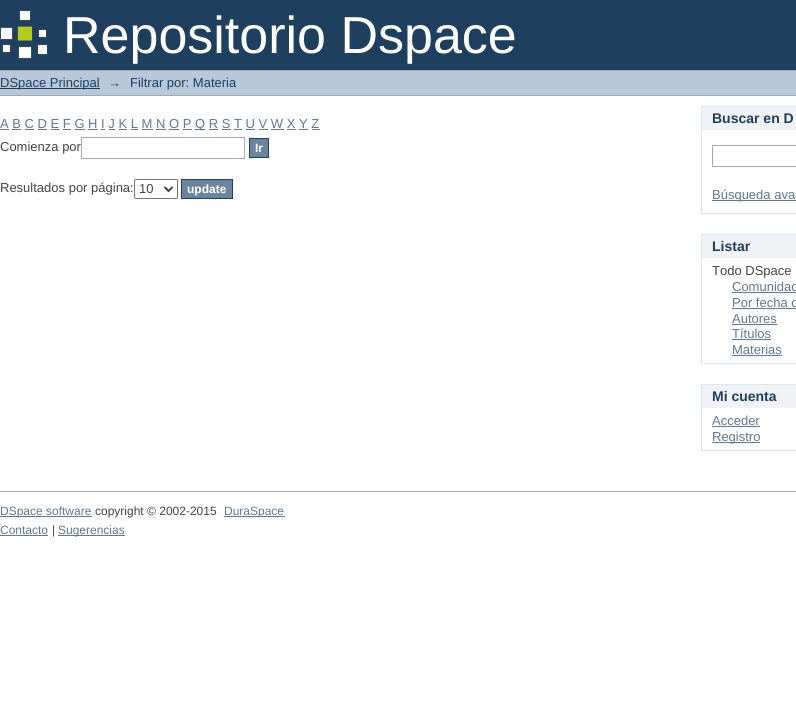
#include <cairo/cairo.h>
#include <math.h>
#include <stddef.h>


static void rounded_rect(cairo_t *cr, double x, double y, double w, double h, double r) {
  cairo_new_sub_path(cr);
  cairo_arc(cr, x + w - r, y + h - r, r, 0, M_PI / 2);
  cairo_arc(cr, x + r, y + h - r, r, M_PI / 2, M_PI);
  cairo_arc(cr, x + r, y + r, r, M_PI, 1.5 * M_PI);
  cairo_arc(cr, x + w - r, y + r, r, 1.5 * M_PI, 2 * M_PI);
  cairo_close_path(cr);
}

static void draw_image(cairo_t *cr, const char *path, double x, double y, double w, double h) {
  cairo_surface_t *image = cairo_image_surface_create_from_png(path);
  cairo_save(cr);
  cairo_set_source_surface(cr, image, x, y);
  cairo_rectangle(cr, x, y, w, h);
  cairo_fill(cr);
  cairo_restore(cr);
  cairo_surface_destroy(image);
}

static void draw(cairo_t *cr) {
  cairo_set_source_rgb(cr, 1, 1, 1);
  cairo_paint(cr);
  cairo_set_source_rgb(cr, 31 / 255.0, 63 / 255.0, 94 / 255.0);
  cairo_rectangle(cr, 0, 0, 796, 70);
  cairo_fill(cr);
  draw_image(cr, "images/1.png", 0, 10, 48, 49);
  cairo_set_source_rgb(cr, 182 / 255.0, 200 / 255.0, 217 / 255.0);
  cairo_rectangle(cr, 0, 71, 796, 24);
  cairo_fill(cr);
  cairo_set_source_rgb(cr, 156 / 255.0, 172 / 255.0, 186 / 255.0);
  cairo_rectangle(cr, 0, 70, 796, 1);
  cairo_fill(cr);
  cairo_rectangle(cr, 0, 95, 796, 1);
  cairo_fill(cr);
  cairo_set_source_rgb(cr, 31 / 255.0, 63 / 255.0, 94 / 255.0);
  cairo_rectangle(cr, 0, 88, 100, 1);
  cairo_fill(cr);
  cairo_set_source_rgb(cr, 96 / 255.0, 120 / 255.0, 144 / 255.0);
  cairo_rectangle(cr, 0, 129, 9, 1);
  cairo_fill(cr);
  cairo_rectangle(cr, 195, 129, 10, 1);
  cairo_fill(cr);
  cairo_rectangle(cr, 12, 129, 9, 1);
  cairo_fill(cr);
  cairo_rectangle(cr, 25, 129, 9, 1);
  cairo_fill(cr);
  cairo_rectangle(cr, 38, 129, 9, 1);
  cairo_fill(cr);
  cairo_rectangle(cr, 51, 129, 8, 1);
  cairo_fill(cr);
  cairo_rectangle(cr, 63, 129, 8, 1);
  cairo_fill(cr);
  cairo_rectangle(cr, 75, 129, 10, 1);
  cairo_fill(cr);
  cairo_rectangle(cr, 88, 129, 10, 1);
  cairo_fill(cr);
  cairo_rectangle(cr, 101, 129, 4, 1);
  cairo_fill(cr);
  cairo_rectangle(cr, 109, 129, 6, 1);
  cairo_fill(cr);
  cairo_rectangle(cr, 119, 129, 8, 1);
  cairo_fill(cr);
  cairo_rectangle(cr, 131, 129, 7, 1);
  cairo_fill(cr);
  cairo_rectangle(cr, 142, 129, 11, 1);
  cairo_fill(cr);
  cairo_rectangle(cr, 156, 129, 10, 1);
  cairo_fill(cr);
  cairo_rectangle(cr, 169, 129, 10, 1);
  cairo_fill(cr);
  cairo_rectangle(cr, 183, 129, 9, 1);
  cairo_fill(cr);
  cairo_rectangle(cr, 209, 129, 9, 1);
  cairo_fill(cr);
  cairo_rectangle(cr, 222, 129, 9, 1);
  cairo_fill(cr);
  cairo_rectangle(cr, 234, 129, 8, 1);
  cairo_fill(cr);
  cairo_rectangle(cr, 246, 129, 9, 1);
  cairo_fill(cr);
  cairo_rectangle(cr, 259, 129, 9, 1);
  cairo_fill(cr);
  cairo_rectangle(cr, 271, 129, 13, 1);
  cairo_fill(cr);
  cairo_rectangle(cr, 287, 129, 9, 1);
  cairo_fill(cr);
  cairo_rectangle(cr, 299, 129, 9, 1);
  cairo_fill(cr);
  cairo_rectangle(cr, 312, 129, 8, 1);
  cairo_fill(cr);
  cairo_rectangle(cr, 81.5, 137.5, 163, 21);
  cairo_set_source_rgb(cr, 170 / 255.0, 170 / 255.0, 170 / 255.0);
  cairo_set_line_width(cr, 1);
  cairo_stroke(cr);
  cairo_set_source_rgb(cr, 109 / 255.0, 133 / 255.0, 156 / 255.0);
  cairo_rectangle(cr, 249.5, 138.5, 19, 19);
  cairo_fill_preserve(cr);
  cairo_set_source_rgb(cr, 31 / 255.0, 63 / 255.0, 94 / 255.0);
  cairo_stroke(cr);
  rounded_rect(cr, 134.5, 179.5, 43, 19, 1.5);
  cairo_set_source_rgb(cr, 118 / 255.0, 118 / 255.0, 118 / 255.0);
  cairo_stroke(cr);
  cairo_new_path(cr);
  cairo_move_to(cr, 164.5, 187);
  cairo_line_to(cr, 168.5, 191);
  cairo_line_to(cr, 172.5, 187);
  cairo_set_source_rgb(cr, 68 / 255.0, 68 / 255.0, 68 / 255.0);
  cairo_set_line_width(cr, 2);
  cairo_stroke(cr);
  cairo_set_source_rgb(cr, 109 / 255.0, 133 / 255.0, 156 / 255.0);
  cairo_rectangle(cr, 181.5, 179.5, 51, 19);
  cairo_fill_preserve(cr);
  cairo_set_source_rgb(cr, 31 / 255.0, 63 / 255.0, 94 / 255.0);
  cairo_set_line_width(cr, 1);
  cairo_stroke(cr);
  cairo_set_source_rgb(cr, 240 / 255.0, 242 / 255.0, 245 / 255.0);
  cairo_rectangle(cr, 702, 107, 94, 23);
  cairo_fill(cr);
  cairo_set_source_rgb(cr, 216 / 255.0, 232 / 255.0, 235 / 255.0);
  cairo_rectangle(cr, 701, 106, 95, 1);
  cairo_fill(cr);
  cairo_rectangle(cr, 701, 106, 1, 24);
  cairo_fill(cr);
  cairo_rectangle(cr, 701, 213, 95, 1);
  cairo_fill(cr);
  cairo_rectangle(cr, 701, 130, 1, 84);
  cairo_fill(cr);
  cairo_rectangle(cr, 712.5, 145.5, 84, 21);
  cairo_set_source_rgb(cr, 170 / 255.0, 170 / 255.0, 170 / 255.0);
  cairo_stroke(cr);
  cairo_set_source_rgb(cr, 96 / 255.0, 120 / 255.0, 144 / 255.0);
  cairo_rectangle(cr, 712, 200, 84, 1);
  cairo_fill(cr);
  cairo_set_source_rgb(cr, 240 / 255.0, 242 / 255.0, 245 / 255.0);
  cairo_rectangle(cr, 702, 235, 94, 23);
  cairo_fill(cr);
  cairo_set_source_rgb(cr, 216 / 255.0, 232 / 255.0, 235 / 255.0);
  cairo_rectangle(cr, 701, 234, 95, 1);
  cairo_fill(cr);
  cairo_rectangle(cr, 701, 234, 1, 24);
  cairo_fill(cr);
  cairo_rectangle(cr, 701, 363, 95, 1);
  cairo_fill(cr);
  cairo_rectangle(cr, 701, 258, 1, 106);
  cairo_fill(cr);
  cairo_set_source_rgb(cr, 96 / 255.0, 120 / 255.0, 144 / 255.0);
  cairo_rectangle(cr, 732, 292, 64, 1);
  cairo_fill(cr);
  cairo_rectangle(cr, 732, 308, 64, 1);
  cairo_fill(cr);
  cairo_rectangle(cr, 732, 324, 45, 1);
  cairo_fill(cr);
  cairo_rectangle(cr, 732, 339, 39, 1);
  cairo_fill(cr);
  cairo_rectangle(cr, 732, 355, 50, 1);
  cairo_fill(cr);
  cairo_set_source_rgb(cr, 240 / 255.0, 242 / 255.0, 245 / 255.0);
  cairo_rectangle(cr, 702, 385, 94, 23);
  cairo_fill(cr);
  cairo_set_source_rgb(cr, 216 / 255.0, 232 / 255.0, 235 / 255.0);
  cairo_rectangle(cr, 701, 384, 95, 1);
  cairo_fill(cr);
  cairo_rectangle(cr, 701, 384, 1, 24);
  cairo_fill(cr);
  cairo_rectangle(cr, 701, 450, 95, 1);
  cairo_fill(cr);
  cairo_rectangle(cr, 701, 408, 1, 43);
  cairo_fill(cr);
  cairo_set_source_rgb(cr, 96 / 255.0, 120 / 255.0, 144 / 255.0);
  cairo_rectangle(cr, 712, 426, 48, 1);
  cairo_fill(cr);
  cairo_rectangle(cr, 712, 442, 48, 1);
  cairo_fill(cr);
  cairo_set_source_rgb(cr, 156 / 255.0, 172 / 255.0, 186 / 255.0);
  cairo_rectangle(cr, 0, 491, 796, 1);
  cairo_fill(cr);
  cairo_set_source_rgb(cr, 96 / 255.0, 120 / 255.0, 144 / 255.0);
  cairo_rectangle(cr, 0, 516, 92, 1);
  cairo_fill(cr);
  cairo_rectangle(cr, 224, 516, 61, 1);
  cairo_fill(cr);
  cairo_rectangle(cr, 0, 535, 48, 1);
  cairo_fill(cr);
  cairo_rectangle(cr, 58, 535, 67, 1);
  cairo_fill(cr);
  cairo_select_font_face(cr, "Liberation Sans", CAIRO_FONT_SLANT_NORMAL, CAIRO_FONT_WEIGHT_NORMAL);
  cairo_set_font_size(cr, 52);
  cairo_set_source_rgb(cr, 1, 1, 1);
  cairo_move_to(cr, 63, 53);
  cairo_show_text(cr, "Repositorio Dspace");
  cairo_set_font_size(cr, 13);
  cairo_set_source_rgb(cr, 31 / 255.0, 63 / 255.0, 94 / 255.0);
  cairo_move_to(cr, 0, 87);
  cairo_show_text(cr, "DSpace Principal");
  cairo_move_to(cr, 108, 87);
  cairo_show_text(cr, "→");
  cairo_move_to(cr, 130, 87);
  cairo_show_text(cr, "Filtrar por: Materia");
  cairo_set_source_rgb(cr, 96 / 255.0, 120 / 255.0, 144 / 255.0);
  cairo_move_to(cr, 0, 128);
  cairo_show_text(cr, "A B C D E F G H I J K L M N O P");
  cairo_move_to(cr, 195, 128);
  cairo_show_text(cr, "Q R S T U V W X Y Z");
  cairo_set_source_rgb(cr, 68 / 255.0, 68 / 255.0, 68 / 255.0);
  cairo_move_to(cr, 0, 151);
  cairo_show_text(cr, "Comienza por");
  cairo_select_font_face(cr, "Liberation Sans", CAIRO_FONT_SLANT_NORMAL, CAIRO_FONT_WEIGHT_BOLD);
  cairo_set_font_size(cr, 12);
  cairo_set_source_rgb(cr, 1, 1, 1);
  cairo_move_to(cr, 255, 152);
  cairo_show_text(cr, "Ir");
  cairo_select_font_face(cr, "Liberation Sans", CAIRO_FONT_SLANT_NORMAL, CAIRO_FONT_WEIGHT_NORMAL);
  cairo_set_font_size(cr, 13);
  cairo_set_source_rgb(cr, 68 / 255.0, 68 / 255.0, 68 / 255.0);
  cairo_move_to(cr, 0, 192);
  cairo_show_text(cr, "Resultados por página:");
  cairo_move_to(cr, 139, 193);
  cairo_show_text(cr, "10");
  cairo_select_font_face(cr, "Liberation Sans", CAIRO_FONT_SLANT_NORMAL, CAIRO_FONT_WEIGHT_BOLD);
  cairo_set_font_size(cr, 12);
  cairo_set_source_rgb(cr, 1, 1, 1);
  cairo_move_to(cr, 187, 193);
  cairo_show_text(cr, "update");
  cairo_set_font_size(cr, 14);
  cairo_set_source_rgb(cr, 31 / 255.0, 63 / 255.0, 94 / 255.0);
  cairo_move_to(cr, 712, 123);
  cairo_show_text(cr, "Buscar en D");
  cairo_select_font_face(cr, "Liberation Sans", CAIRO_FONT_SLANT_NORMAL, CAIRO_FONT_WEIGHT_NORMAL);
  cairo_set_font_size(cr, 13);
  cairo_set_source_rgb(cr, 96 / 255.0, 120 / 255.0, 144 / 255.0);
  cairo_move_to(cr, 712, 199);
  cairo_show_text(cr, "Búsqueda ava");
  cairo_select_font_face(cr, "Liberation Sans", CAIRO_FONT_SLANT_NORMAL, CAIRO_FONT_WEIGHT_BOLD);
  cairo_set_font_size(cr, 14);
  cairo_set_source_rgb(cr, 31 / 255.0, 63 / 255.0, 94 / 255.0);
  cairo_move_to(cr, 712, 251);
  cairo_show_text(cr, "Listar");
  cairo_select_font_face(cr, "Liberation Sans", CAIRO_FONT_SLANT_NORMAL, CAIRO_FONT_WEIGHT_NORMAL);
  cairo_set_font_size(cr, 13);
  cairo_set_source_rgb(cr, 68 / 255.0, 68 / 255.0, 68 / 255.0);
  cairo_move_to(cr, 712, 275);
  cairo_show_text(cr, "Todo DSpace");
  cairo_set_source_rgb(cr, 96 / 255.0, 120 / 255.0, 144 / 255.0);
  cairo_move_to(cr, 732, 291);
  cairo_show_text(cr, "Comunidad");
  cairo_move_to(cr, 732, 307);
  cairo_show_text(cr, "Por fecha d");
  cairo_move_to(cr, 732, 323);
  cairo_show_text(cr, "Autores");
  cairo_move_to(cr, 732, 338);
  cairo_show_text(cr, "Títulos");
  cairo_move_to(cr, 732, 354);
  cairo_show_text(cr, "Materias");
  cairo_select_font_face(cr, "Liberation Sans", CAIRO_FONT_SLANT_NORMAL, CAIRO_FONT_WEIGHT_BOLD);
  cairo_set_font_size(cr, 14);
  cairo_set_source_rgb(cr, 31 / 255.0, 63 / 255.0, 94 / 255.0);
  cairo_move_to(cr, 712, 401);
  cairo_show_text(cr, "Mi cuenta");
  cairo_select_font_face(cr, "Liberation Sans", CAIRO_FONT_SLANT_NORMAL, CAIRO_FONT_WEIGHT_NORMAL);
  cairo_set_font_size(cr, 13);
  cairo_set_source_rgb(cr, 96 / 255.0, 120 / 255.0, 144 / 255.0);
  cairo_move_to(cr, 712, 425);
  cairo_show_text(cr, "Acceder");
  cairo_move_to(cr, 712, 441);
  cairo_show_text(cr, "Registro");
  cairo_set_font_size(cr, 12);
  cairo_move_to(cr, 0, 515);
  cairo_show_text(cr, "DSpace software");
  cairo_set_source_rgb(cr, 68 / 255.0, 68 / 255.0, 68 / 255.0);
  cairo_move_to(cr, 95, 515);
  cairo_show_text(cr, "copyright © 2002-2015");
  cairo_set_source_rgb(cr, 96 / 255.0, 120 / 255.0, 144 / 255.0);
  cairo_move_to(cr, 224, 515);
  cairo_show_text(cr, "DuraSpace");
  cairo_move_to(cr, 0, 534);
  cairo_show_text(cr, "Contacto");
  cairo_set_source_rgb(cr, 68 / 255.0, 68 / 255.0, 68 / 255.0);
  cairo_move_to(cr, 52, 534);
  cairo_show_text(cr, "|");
  cairo_set_source_rgb(cr, 96 / 255.0, 120 / 255.0, 144 / 255.0);
  cairo_move_to(cr, 58, 534);
  cairo_show_text(cr, "Sugerencias");
}

int main(void) {
  cairo_surface_t *surface = cairo_image_surface_create(CAIRO_FORMAT_RGB24, 796, 717);
  cairo_t *cr = cairo_create(surface);
  cairo_font_options_t *options = cairo_font_options_create();
  cairo_font_options_set_hint_metrics(options, CAIRO_HINT_METRICS_OFF);
  cairo_font_options_set_hint_style(options, CAIRO_HINT_STYLE_NONE);
  cairo_set_font_options(cr, options);
  cairo_set_miter_limit(cr, 4);
  draw(cr);
  cairo_surface_write_to_png(surface, "out.png");
  cairo_font_options_destroy(options);
  cairo_destroy(cr);
  cairo_surface_destroy(surface);
  return 0;
}
